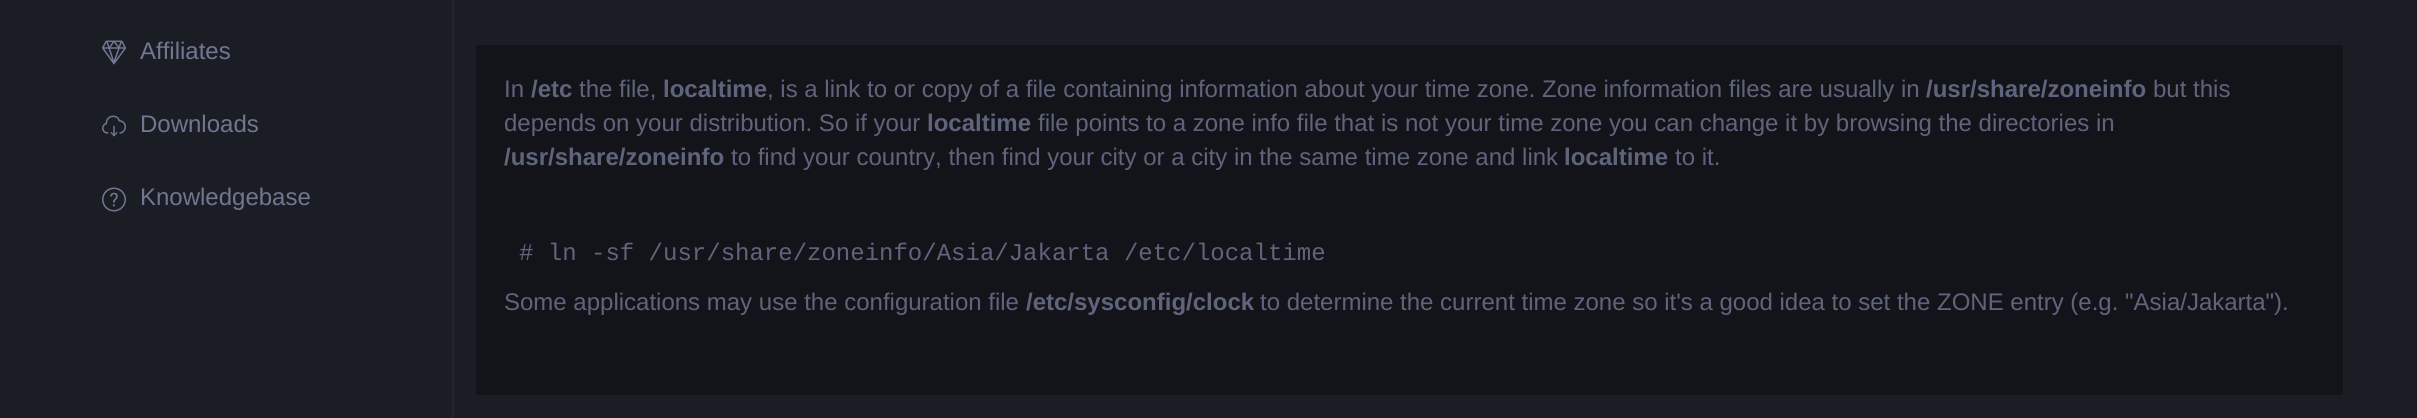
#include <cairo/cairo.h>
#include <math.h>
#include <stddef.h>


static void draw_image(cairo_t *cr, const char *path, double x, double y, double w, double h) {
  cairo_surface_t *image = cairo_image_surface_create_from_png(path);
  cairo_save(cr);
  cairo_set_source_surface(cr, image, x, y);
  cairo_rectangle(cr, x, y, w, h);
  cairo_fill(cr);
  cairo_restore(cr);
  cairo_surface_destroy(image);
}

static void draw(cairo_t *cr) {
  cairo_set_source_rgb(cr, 27 / 255.0, 29 / 255.0, 36 / 255.0);
  cairo_paint(cr);
  cairo_set_source_rgb(cr, 36 / 255.0, 38 / 255.0, 47 / 255.0);
  cairo_rectangle(cr, 452, 0, 2, 418);
  cairo_fill(cr);
  draw_image(cr, "images/1.png", 102, 40, 24, 25);
  draw_image(cr, "images/2.png", 102, 115, 24, 22);
  draw_image(cr, "images/3.png", 102, 187, 24, 25);
  cairo_set_source_rgb(cr, 19 / 255.0, 20 / 255.0, 25 / 255.0);
  cairo_rectangle(cr, 476, 45, 1867, 350);
  cairo_fill(cr);
  cairo_select_font_face(cr, "Liberation Sans", CAIRO_FONT_SLANT_NORMAL, CAIRO_FONT_WEIGHT_NORMAL);
  cairo_set_font_size(cr, 24);
  cairo_set_source_rgb(cr, 113 / 255.0, 119 / 255.0, 147 / 255.0);
  cairo_move_to(cr, 140, 59);
  cairo_show_text(cr, "Affiliates");
  cairo_move_to(cr, 140, 132);
  cairo_show_text(cr, "Downloads");
  cairo_move_to(cr, 140, 205);
  cairo_show_text(cr, "Knowledgebase");
  cairo_set_source_rgb(cr, 95 / 255.0, 100 / 255.0, 125 / 255.0);
  cairo_move_to(cr, 504, 97);
  cairo_show_text(cr, "In");
  cairo_select_font_face(cr, "Liberation Sans", CAIRO_FONT_SLANT_NORMAL, CAIRO_FONT_WEIGHT_BOLD);
  cairo_move_to(cr, 531, 97);
  cairo_show_text(cr, "/etc");
  cairo_select_font_face(cr, "Liberation Sans", CAIRO_FONT_SLANT_NORMAL, CAIRO_FONT_WEIGHT_NORMAL);
  cairo_move_to(cr, 579, 97);
  cairo_show_text(cr, "the file,");
  cairo_select_font_face(cr, "Liberation Sans", CAIRO_FONT_SLANT_NORMAL, CAIRO_FONT_WEIGHT_BOLD);
  cairo_move_to(cr, 663, 97);
  cairo_show_text(cr, "localtime");
  cairo_select_font_face(cr, "Liberation Sans", CAIRO_FONT_SLANT_NORMAL, CAIRO_FONT_WEIGHT_NORMAL);
  cairo_move_to(cr, 767, 97);
  cairo_show_text(cr, ", is a link to or copy of a file containing information about your time zone. Zone information files are usually in");
  cairo_select_font_face(cr, "Liberation Sans", CAIRO_FONT_SLANT_NORMAL, CAIRO_FONT_WEIGHT_BOLD);
  cairo_move_to(cr, 1926, 97);
  cairo_show_text(cr, "/usr/share/zoneinfo");
  cairo_select_font_face(cr, "Liberation Sans", CAIRO_FONT_SLANT_NORMAL, CAIRO_FONT_WEIGHT_NORMAL);
  cairo_move_to(cr, 2153, 97);
  cairo_show_text(cr, "but this");
  cairo_move_to(cr, 504, 131);
  cairo_show_text(cr, "depends on your distribution. So if your");
  cairo_select_font_face(cr, "Liberation Sans", CAIRO_FONT_SLANT_NORMAL, CAIRO_FONT_WEIGHT_BOLD);
  cairo_move_to(cr, 927, 131);
  cairo_show_text(cr, "localtime");
  cairo_select_font_face(cr, "Liberation Sans", CAIRO_FONT_SLANT_NORMAL, CAIRO_FONT_WEIGHT_NORMAL);
  cairo_move_to(cr, 1038, 131);
  cairo_show_text(cr, "file points to a zone info file that is not your time zone you can change it by browsing the directories in");
  cairo_select_font_face(cr, "Liberation Sans", CAIRO_FONT_SLANT_NORMAL, CAIRO_FONT_WEIGHT_BOLD);
  cairo_move_to(cr, 504, 165);
  cairo_show_text(cr, "/usr/share/zoneinfo");
  cairo_select_font_face(cr, "Liberation Sans", CAIRO_FONT_SLANT_NORMAL, CAIRO_FONT_WEIGHT_NORMAL);
  cairo_move_to(cr, 731, 165);
  cairo_show_text(cr, "to find your country, then find your city or a city in the same time zone and link");
  cairo_select_font_face(cr, "Liberation Sans", CAIRO_FONT_SLANT_NORMAL, CAIRO_FONT_WEIGHT_BOLD);
  cairo_move_to(cr, 1564, 165);
  cairo_show_text(cr, "localtime");
  cairo_select_font_face(cr, "Liberation Sans", CAIRO_FONT_SLANT_NORMAL, CAIRO_FONT_WEIGHT_NORMAL);
  cairo_move_to(cr, 1675, 165);
  cairo_show_text(cr, "to it.");
  cairo_select_font_face(cr, "Liberation Mono", CAIRO_FONT_SLANT_NORMAL, CAIRO_FONT_WEIGHT_NORMAL);
  cairo_move_to(cr, 519, 260);
  cairo_show_text(cr, "# ln -sf /usr/share/zoneinfo/Asia/Jakarta /etc/localtime");
  cairo_select_font_face(cr, "Liberation Sans", CAIRO_FONT_SLANT_NORMAL, CAIRO_FONT_WEIGHT_NORMAL);
  cairo_move_to(cr, 504, 310);
  cairo_show_text(cr, "Some applications may use the configuration file");
  cairo_select_font_face(cr, "Liberation Sans", CAIRO_FONT_SLANT_NORMAL, CAIRO_FONT_WEIGHT_BOLD);
  cairo_move_to(cr, 1026, 310);
  cairo_show_text(cr, "/etc/sysconfig/clock");
  cairo_select_font_face(cr, "Liberation Sans", CAIRO_FONT_SLANT_NORMAL, CAIRO_FONT_WEIGHT_NORMAL);
  cairo_move_to(cr, 1260, 310);
  cairo_show_text(cr, "to determine the current time zone so it's a good idea to set the ZONE entry (e.g. \"Asia/Jakarta\").");
}

int main(void) {
  cairo_surface_t *surface = cairo_image_surface_create(CAIRO_FORMAT_RGB24, 2417, 418);
  cairo_t *cr = cairo_create(surface);
  cairo_font_options_t *options = cairo_font_options_create();
  cairo_font_options_set_hint_metrics(options, CAIRO_HINT_METRICS_OFF);
  cairo_font_options_set_hint_style(options, CAIRO_HINT_STYLE_NONE);
  cairo_set_font_options(cr, options);
  cairo_set_miter_limit(cr, 4);
  draw(cr);
  cairo_surface_write_to_png(surface, "out.png");
  cairo_font_options_destroy(options);
  cairo_destroy(cr);
  cairo_surface_destroy(surface);
  return 0;
}
